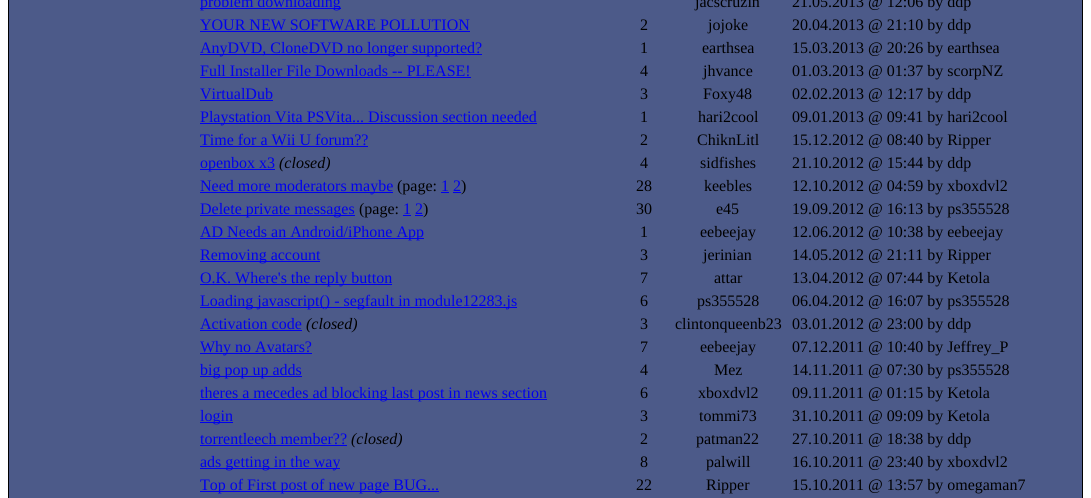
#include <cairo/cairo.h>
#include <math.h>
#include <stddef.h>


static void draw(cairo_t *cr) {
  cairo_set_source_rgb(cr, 1, 1, 1);
  cairo_paint(cr);
  cairo_set_source_rgb(cr, 76 / 255.0, 90 / 255.0, 137 / 255.0);
  cairo_rectangle(cr, 9, 0, 1073, 498);
  cairo_fill(cr);
  cairo_set_source_rgb(cr, 0, 0, 0);
  cairo_rectangle(cr, 1082, 0, 1, 498);
  cairo_fill(cr);
  cairo_rectangle(cr, 8, 0, 1, 498);
  cairo_fill(cr);
  cairo_set_source_rgb(cr, 0, 0, 238 / 255.0);
  cairo_rectangle(cr, 200, 8, 141, 1);
  cairo_fill(cr);
  cairo_rectangle(cr, 200, 31, 270, 1);
  cairo_fill(cr);
  cairo_rectangle(cr, 200, 54, 282, 1);
  cairo_fill(cr);
  cairo_rectangle(cr, 200, 77, 271, 1);
  cairo_fill(cr);
  cairo_rectangle(cr, 200, 100, 73, 1);
  cairo_fill(cr);
  cairo_rectangle(cr, 200, 123, 337, 1);
  cairo_fill(cr);
  cairo_rectangle(cr, 200, 146, 168, 1);
  cairo_fill(cr);
  cairo_rectangle(cr, 200, 169, 75, 1);
  cairo_fill(cr);
  cairo_rectangle(cr, 200, 192, 193, 1);
  cairo_fill(cr);
  cairo_rectangle(cr, 441, 192, 8, 1);
  cairo_fill(cr);
  cairo_rectangle(cr, 453, 192, 8, 1);
  cairo_fill(cr);
  cairo_rectangle(cr, 200, 215, 155, 1);
  cairo_fill(cr);
  cairo_rectangle(cr, 403, 215, 8, 1);
  cairo_fill(cr);
  cairo_rectangle(cr, 415, 215, 8, 1);
  cairo_fill(cr);
  cairo_rectangle(cr, 200, 238, 224, 1);
  cairo_fill(cr);
  cairo_rectangle(cr, 200, 261, 120, 1);
  cairo_fill(cr);
  cairo_rectangle(cr, 200, 284, 192, 1);
  cairo_fill(cr);
  cairo_rectangle(cr, 200, 307, 317, 1);
  cairo_fill(cr);
  cairo_rectangle(cr, 200, 330, 102, 1);
  cairo_fill(cr);
  cairo_rectangle(cr, 200, 353, 112, 1);
  cairo_fill(cr);
  cairo_rectangle(cr, 200, 376, 102, 1);
  cairo_fill(cr);
  cairo_rectangle(cr, 200, 399, 347, 1);
  cairo_fill(cr);
  cairo_rectangle(cr, 200, 422, 33, 1);
  cairo_fill(cr);
  cairo_rectangle(cr, 200, 445, 147, 1);
  cairo_fill(cr);
  cairo_rectangle(cr, 200, 468, 140, 1);
  cairo_fill(cr);
  cairo_rectangle(cr, 200, 491, 239, 1);
  cairo_fill(cr);
  cairo_select_font_face(cr, "Liberation Serif", CAIRO_FONT_SLANT_NORMAL, CAIRO_FONT_WEIGHT_NORMAL);
  cairo_set_font_size(cr, 16);
  cairo_move_to(cr, 200, 7);
  cairo_show_text(cr, "problem downloading");
  cairo_set_source_rgb(cr, 0, 0, 0);
  cairo_move_to(cr, 695, 7);
  cairo_show_text(cr, "jacscruzin");
  cairo_move_to(cr, 792, 7);
  cairo_show_text(cr, "21.05.2013 @ 12:06 by ddp");
  cairo_set_source_rgb(cr, 0, 0, 238 / 255.0);
  cairo_move_to(cr, 200, 30);
  cairo_show_text(cr, "YOUR NEW SOFTWARE POLLUTION");
  cairo_set_source_rgb(cr, 0, 0, 0);
  cairo_move_to(cr, 640, 30);
  cairo_show_text(cr, "2");
  cairo_move_to(cr, 708, 30);
  cairo_show_text(cr, "jojoke");
  cairo_move_to(cr, 792, 30);
  cairo_show_text(cr, "20.04.2013 @ 21:10 by ddp");
  cairo_set_source_rgb(cr, 0, 0, 238 / 255.0);
  cairo_move_to(cr, 200, 53);
  cairo_show_text(cr, "AnyDVD, CloneDVD no longer supported?");
  cairo_set_source_rgb(cr, 0, 0, 0);
  cairo_move_to(cr, 640, 53);
  cairo_show_text(cr, "1");
  cairo_move_to(cr, 702, 53);
  cairo_show_text(cr, "earthsea");
  cairo_move_to(cr, 792, 53);
  cairo_show_text(cr, "15.03.2013 @ 20:26 by earthsea");
  cairo_set_source_rgb(cr, 0, 0, 238 / 255.0);
  cairo_move_to(cr, 200, 76);
  cairo_show_text(cr, "Full Installer File Downloads -- PLEASE!");
  cairo_set_source_rgb(cr, 0, 0, 0);
  cairo_move_to(cr, 640, 76);
  cairo_show_text(cr, "4");
  cairo_move_to(cr, 703, 76);
  cairo_show_text(cr, "jhvance");
  cairo_move_to(cr, 792, 76);
  cairo_show_text(cr, "01.03.2013 @ 01:37 by scorpNZ");
  cairo_set_source_rgb(cr, 0, 0, 238 / 255.0);
  cairo_move_to(cr, 200, 99);
  cairo_show_text(cr, "VirtualDub");
  cairo_set_source_rgb(cr, 0, 0, 0);
  cairo_move_to(cr, 640, 99);
  cairo_show_text(cr, "3");
  cairo_move_to(cr, 703, 99);
  cairo_show_text(cr, "Foxy48");
  cairo_move_to(cr, 792, 99);
  cairo_show_text(cr, "02.02.2013 @ 12:17 by ddp");
  cairo_set_source_rgb(cr, 0, 0, 238 / 255.0);
  cairo_move_to(cr, 200, 122);
  cairo_show_text(cr, "Playstation Vita PSVita... Discussion section needed");
  cairo_set_source_rgb(cr, 0, 0, 0);
  cairo_move_to(cr, 640, 122);
  cairo_show_text(cr, "1");
  cairo_move_to(cr, 698, 122);
  cairo_show_text(cr, "hari2cool");
  cairo_move_to(cr, 792, 122);
  cairo_show_text(cr, "09.01.2013 @ 09:41 by hari2cool");
  cairo_set_source_rgb(cr, 0, 0, 238 / 255.0);
  cairo_move_to(cr, 200, 145);
  cairo_show_text(cr, "Time for a Wii U forum?\077");
  cairo_set_source_rgb(cr, 0, 0, 0);
  cairo_move_to(cr, 640, 145);
  cairo_show_text(cr, "2");
  cairo_move_to(cr, 697, 145);
  cairo_show_text(cr, "ChiknLitl");
  cairo_move_to(cr, 792, 145);
  cairo_show_text(cr, "15.12.2012 @ 08:40 by Ripper");
  cairo_set_source_rgb(cr, 0, 0, 238 / 255.0);
  cairo_move_to(cr, 200, 168);
  cairo_show_text(cr, "openbox x3");
  cairo_select_font_face(cr, "Liberation Serif", CAIRO_FONT_SLANT_ITALIC, CAIRO_FONT_WEIGHT_NORMAL);
  cairo_set_source_rgb(cr, 0, 0, 0);
  cairo_move_to(cr, 279, 168);
  cairo_show_text(cr, "(closed)");
  cairo_select_font_face(cr, "Liberation Serif", CAIRO_FONT_SLANT_NORMAL, CAIRO_FONT_WEIGHT_NORMAL);
  cairo_move_to(cr, 640, 168);
  cairo_show_text(cr, "4");
  cairo_move_to(cr, 700, 168);
  cairo_show_text(cr, "sidfishes");
  cairo_move_to(cr, 792, 168);
  cairo_show_text(cr, "21.10.2012 @ 15:44 by ddp");
  cairo_set_source_rgb(cr, 0, 0, 238 / 255.0);
  cairo_move_to(cr, 200, 191);
  cairo_show_text(cr, "Need more moderators maybe");
  cairo_set_source_rgb(cr, 0, 0, 0);
  cairo_move_to(cr, 397, 191);
  cairo_show_text(cr, "(page:");
  cairo_set_source_rgb(cr, 0, 0, 238 / 255.0);
  cairo_move_to(cr, 441, 191);
  cairo_show_text(cr, "1 2");
  cairo_set_source_rgb(cr, 0, 0, 0);
  cairo_move_to(cr, 461, 191);
  cairo_show_text(cr, ")");
  cairo_move_to(cr, 636, 191);
  cairo_show_text(cr, "28");
  cairo_move_to(cr, 704, 191);
  cairo_show_text(cr, "keebles");
  cairo_move_to(cr, 792, 191);
  cairo_show_text(cr, "12.10.2012 @ 04:59 by xboxdvl2");
  cairo_set_source_rgb(cr, 0, 0, 238 / 255.0);
  cairo_move_to(cr, 200, 214);
  cairo_show_text(cr, "Delete private messages");
  cairo_set_source_rgb(cr, 0, 0, 0);
  cairo_move_to(cr, 359, 214);
  cairo_show_text(cr, "(page:");
  cairo_set_source_rgb(cr, 0, 0, 238 / 255.0);
  cairo_move_to(cr, 403, 214);
  cairo_show_text(cr, "1 2");
  cairo_set_source_rgb(cr, 0, 0, 0);
  cairo_move_to(cr, 423, 214);
  cairo_show_text(cr, ")");
  cairo_move_to(cr, 636, 214);
  cairo_show_text(cr, "30");
  cairo_move_to(cr, 716, 214);
  cairo_show_text(cr, "e45");
  cairo_move_to(cr, 792, 214);
  cairo_show_text(cr, "19.09.2012 @ 16:13 by ps355528");
  cairo_set_source_rgb(cr, 0, 0, 238 / 255.0);
  cairo_move_to(cr, 200, 237);
  cairo_show_text(cr, "AD Needs an Android/iPhone App");
  cairo_set_source_rgb(cr, 0, 0, 0);
  cairo_move_to(cr, 640, 237);
  cairo_show_text(cr, "1");
  cairo_move_to(cr, 700, 237);
  cairo_show_text(cr, "eebeejay");
  cairo_move_to(cr, 792, 237);
  cairo_show_text(cr, "12.06.2012 @ 10:38 by eebeejay");
  cairo_set_source_rgb(cr, 0, 0, 238 / 255.0);
  cairo_move_to(cr, 200, 260);
  cairo_show_text(cr, "Removing account");
  cairo_set_source_rgb(cr, 0, 0, 0);
  cairo_move_to(cr, 640, 260);
  cairo_show_text(cr, "3");
  cairo_move_to(cr, 703, 260);
  cairo_show_text(cr, "jerinian");
  cairo_move_to(cr, 792, 260);
  cairo_show_text(cr, "14.05.2012 @ 21:11 by Ripper");
  cairo_set_source_rgb(cr, 0, 0, 238 / 255.0);
  cairo_move_to(cr, 200, 283);
  cairo_show_text(cr, "O.K. Where's the reply button");
  cairo_set_source_rgb(cr, 0, 0, 0);
  cairo_move_to(cr, 640, 283);
  cairo_show_text(cr, "7");
  cairo_move_to(cr, 714, 283);
  cairo_show_text(cr, "attar");
  cairo_move_to(cr, 792, 283);
  cairo_show_text(cr, "13.04.2012 @ 07:44 by Ketola");
  cairo_set_source_rgb(cr, 0, 0, 238 / 255.0);
  cairo_move_to(cr, 200, 306);
  cairo_show_text(cr, "Loading javascript() - segfault in module12283.js");
  cairo_set_source_rgb(cr, 0, 0, 0);
  cairo_move_to(cr, 640, 306);
  cairo_show_text(cr, "6");
  cairo_move_to(cr, 697, 306);
  cairo_show_text(cr, "ps355528");
  cairo_move_to(cr, 792, 306);
  cairo_show_text(cr, "06.04.2012 @ 16:07 by ps355528");
  cairo_set_source_rgb(cr, 0, 0, 238 / 255.0);
  cairo_move_to(cr, 200, 329);
  cairo_show_text(cr, "Activation code");
  cairo_select_font_face(cr, "Liberation Serif", CAIRO_FONT_SLANT_ITALIC, CAIRO_FONT_WEIGHT_NORMAL);
  cairo_set_source_rgb(cr, 0, 0, 0);
  cairo_move_to(cr, 306, 329);
  cairo_show_text(cr, "(closed)");
  cairo_select_font_face(cr, "Liberation Serif", CAIRO_FONT_SLANT_NORMAL, CAIRO_FONT_WEIGHT_NORMAL);
  cairo_move_to(cr, 640, 329);
  cairo_show_text(cr, "3");
  cairo_move_to(cr, 675, 329);
  cairo_show_text(cr, "clintonqueenb23");
  cairo_move_to(cr, 792, 329);
  cairo_show_text(cr, "03.01.2012 @ 23:00 by ddp");
  cairo_set_source_rgb(cr, 0, 0, 238 / 255.0);
  cairo_move_to(cr, 200, 352);
  cairo_show_text(cr, "Why no Avatars?");
  cairo_set_source_rgb(cr, 0, 0, 0);
  cairo_move_to(cr, 640, 352);
  cairo_show_text(cr, "7");
  cairo_move_to(cr, 700, 352);
  cairo_show_text(cr, "eebeejay");
  cairo_move_to(cr, 792, 352);
  cairo_show_text(cr, "07.12.2011 @ 10:40 by Jeffrey_P");
  cairo_set_source_rgb(cr, 0, 0, 238 / 255.0);
  cairo_move_to(cr, 200, 375);
  cairo_show_text(cr, "big pop up adds");
  cairo_set_source_rgb(cr, 0, 0, 0);
  cairo_move_to(cr, 640, 375);
  cairo_show_text(cr, "4");
  cairo_move_to(cr, 714, 375);
  cairo_show_text(cr, "Mez");
  cairo_move_to(cr, 792, 375);
  cairo_show_text(cr, "14.11.2011 @ 07:30 by ps355528");
  cairo_set_source_rgb(cr, 0, 0, 238 / 255.0);
  cairo_move_to(cr, 200, 398);
  cairo_show_text(cr, "theres a mecedes ad blocking last post in news section");
  cairo_set_source_rgb(cr, 0, 0, 0);
  cairo_move_to(cr, 640, 398);
  cairo_show_text(cr, "6");
  cairo_move_to(cr, 698, 398);
  cairo_show_text(cr, "xboxdvl2");
  cairo_move_to(cr, 792, 398);
  cairo_show_text(cr, "09.11.2011 @ 01:15 by Ketola");
  cairo_set_source_rgb(cr, 0, 0, 238 / 255.0);
  cairo_move_to(cr, 200, 421);
  cairo_show_text(cr, "login");
  cairo_set_source_rgb(cr, 0, 0, 0);
  cairo_move_to(cr, 640, 421);
  cairo_show_text(cr, "3");
  cairo_move_to(cr, 699, 421);
  cairo_show_text(cr, "tommi73");
  cairo_move_to(cr, 792, 421);
  cairo_show_text(cr, "31.10.2011 @ 09:09 by Ketola");
  cairo_set_source_rgb(cr, 0, 0, 238 / 255.0);
  cairo_move_to(cr, 200, 444);
  cairo_show_text(cr, "torrentleech member?\077");
  cairo_select_font_face(cr, "Liberation Serif", CAIRO_FONT_SLANT_ITALIC, CAIRO_FONT_WEIGHT_NORMAL);
  cairo_set_source_rgb(cr, 0, 0, 0);
  cairo_move_to(cr, 351, 444);
  cairo_show_text(cr, "(closed)");
  cairo_select_font_face(cr, "Liberation Serif", CAIRO_FONT_SLANT_NORMAL, CAIRO_FONT_WEIGHT_NORMAL);
  cairo_move_to(cr, 640, 444);
  cairo_show_text(cr, "2");
  cairo_move_to(cr, 696, 444);
  cairo_show_text(cr, "patman22");
  cairo_move_to(cr, 792, 444);
  cairo_show_text(cr, "27.10.2011 @ 18:38 by ddp");
  cairo_set_source_rgb(cr, 0, 0, 238 / 255.0);
  cairo_move_to(cr, 200, 467);
  cairo_show_text(cr, "ads getting in the way");
  cairo_set_source_rgb(cr, 0, 0, 0);
  cairo_move_to(cr, 640, 467);
  cairo_show_text(cr, "8");
  cairo_move_to(cr, 706, 467);
  cairo_show_text(cr, "palwill");
  cairo_move_to(cr, 792, 467);
  cairo_show_text(cr, "16.10.2011 @ 23:40 by xboxdvl2");
  cairo_set_source_rgb(cr, 0, 0, 238 / 255.0);
  cairo_move_to(cr, 200, 490);
  cairo_show_text(cr, "Top of First post of new page BUG...");
  cairo_set_source_rgb(cr, 0, 0, 0);
  cairo_move_to(cr, 636, 490);
  cairo_show_text(cr, "22");
  cairo_move_to(cr, 706, 490);
  cairo_show_text(cr, "Ripper");
  cairo_move_to(cr, 792, 490);
  cairo_show_text(cr, "15.10.2011 @ 13:57 by omegaman7");
}

int main(void) {
  cairo_surface_t *surface = cairo_image_surface_create(CAIRO_FORMAT_RGB24, 1091, 498);
  cairo_t *cr = cairo_create(surface);
  cairo_font_options_t *options = cairo_font_options_create();
  cairo_font_options_set_hint_metrics(options, CAIRO_HINT_METRICS_OFF);
  cairo_font_options_set_hint_style(options, CAIRO_HINT_STYLE_NONE);
  cairo_set_font_options(cr, options);
  cairo_set_miter_limit(cr, 4);
  draw(cr);
  cairo_surface_write_to_png(surface, "out.png");
  cairo_font_options_destroy(options);
  cairo_destroy(cr);
  cairo_surface_destroy(surface);
  return 0;
}
